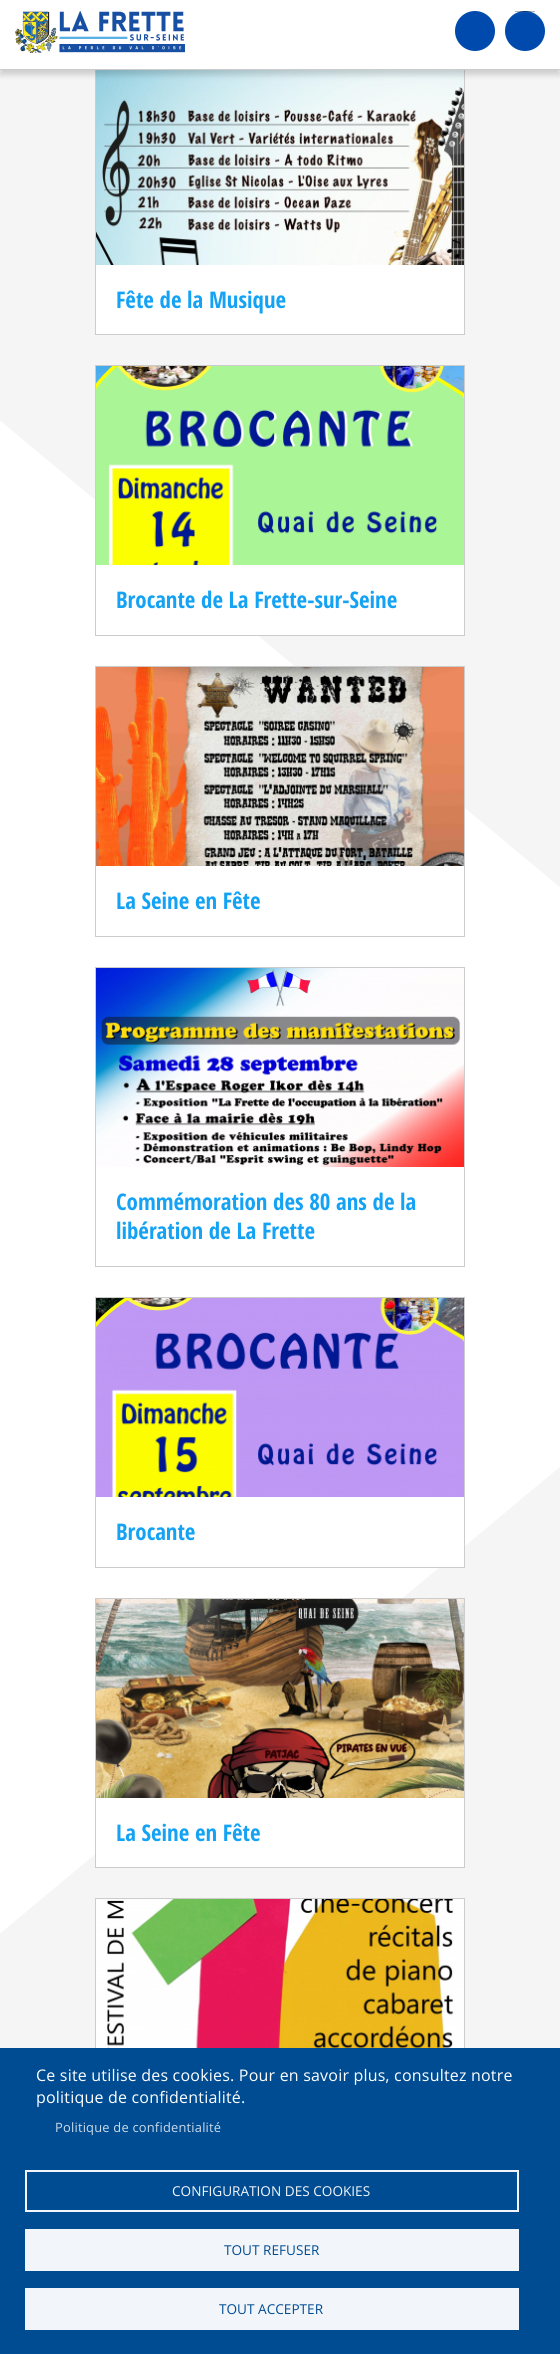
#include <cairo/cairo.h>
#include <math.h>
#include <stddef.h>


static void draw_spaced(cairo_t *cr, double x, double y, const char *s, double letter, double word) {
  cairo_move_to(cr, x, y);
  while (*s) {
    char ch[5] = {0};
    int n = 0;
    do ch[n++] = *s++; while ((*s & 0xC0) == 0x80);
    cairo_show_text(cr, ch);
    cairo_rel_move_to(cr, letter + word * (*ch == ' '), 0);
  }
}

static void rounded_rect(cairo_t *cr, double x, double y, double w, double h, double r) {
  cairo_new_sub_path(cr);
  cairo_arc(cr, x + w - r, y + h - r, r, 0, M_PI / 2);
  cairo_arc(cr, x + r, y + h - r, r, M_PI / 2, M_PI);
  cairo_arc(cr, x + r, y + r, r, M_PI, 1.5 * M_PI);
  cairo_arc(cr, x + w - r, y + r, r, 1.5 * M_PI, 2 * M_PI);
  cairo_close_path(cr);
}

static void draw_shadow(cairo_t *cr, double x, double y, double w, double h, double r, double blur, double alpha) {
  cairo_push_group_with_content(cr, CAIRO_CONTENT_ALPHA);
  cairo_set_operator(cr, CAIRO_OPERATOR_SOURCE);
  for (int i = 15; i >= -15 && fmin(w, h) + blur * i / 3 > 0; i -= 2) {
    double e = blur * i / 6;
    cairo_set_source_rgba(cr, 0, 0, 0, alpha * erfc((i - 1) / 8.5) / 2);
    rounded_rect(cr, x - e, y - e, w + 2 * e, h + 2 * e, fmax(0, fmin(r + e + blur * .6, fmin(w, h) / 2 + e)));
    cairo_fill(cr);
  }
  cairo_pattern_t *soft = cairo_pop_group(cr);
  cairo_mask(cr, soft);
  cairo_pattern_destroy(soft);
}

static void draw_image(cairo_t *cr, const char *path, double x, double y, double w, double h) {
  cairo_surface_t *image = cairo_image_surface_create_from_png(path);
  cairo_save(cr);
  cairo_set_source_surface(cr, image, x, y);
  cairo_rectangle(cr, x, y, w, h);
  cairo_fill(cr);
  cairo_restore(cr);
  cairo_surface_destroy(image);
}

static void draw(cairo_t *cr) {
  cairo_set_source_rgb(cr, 245 / 255.0, 245 / 255.0, 245 / 255.0);
  cairo_paint(cr);
  draw_image(cr, "images/1.png", 0, 421, 560, 1512);
  cairo_set_source_rgb(cr, 1, 1, 1);
  cairo_rectangle(cr, 96, 265, 368, 69);
  cairo_fill(cr);
  cairo_rectangle(cr, 95.5, 65.5, 369, 269);
  cairo_set_source_rgb(cr, 204 / 255.0, 204 / 255.0, 204 / 255.0);
  cairo_set_line_width(cr, 1);
  cairo_stroke(cr);
  draw_image(cr, "images/3.png", 96, 70, 368, 195);
  cairo_set_source_rgb(cr, 0, 0, 0);
  draw_shadow(cr, 0, 5, 560, 70, 0, 3, 0.16);
  cairo_set_source_rgb(cr, 1, 1, 1);
  cairo_rectangle(cr, 0, 0, 560, 69);
  cairo_fill(cr);
  cairo_set_source_rgb(cr, 204 / 255.0, 204 / 255.0, 204 / 255.0);
  cairo_rectangle(cr, 0, 69, 560, 1);
  cairo_fill(cr);
  draw_image(cr, "images/2.png", 15, 11, 170, 42);
  cairo_set_source_rgb(cr, 0, 74 / 255.0, 173 / 255.0);
  cairo_arc(cr, 475, 31, 20, 0, 2 * M_PI);
  cairo_fill(cr);
  cairo_arc(cr, 525, 31, 20, 0, 2 * M_PI);
  cairo_fill(cr);
  cairo_set_source_rgba(cr, 1, 1, 1, 0.05);
  cairo_new_path(cr);
  cairo_move_to(cr, 525, 13);
  cairo_curve_to(cr, 539, 13, 545, 23, 545, 34);
  cairo_curve_to(cr, 545, 29, 544, 24, 542, 20);
  cairo_curve_to(cr, 530, 4, 503, 13, 505, 34);
  cairo_curve_to(cr, 505, 23, 511, 13, 525, 13);
  cairo_close_path(cr);
  cairo_fill(cr);
  cairo_set_source_rgba(cr, 0, 0, 0, 0.3);
  cairo_rectangle(cr, 515, 11, 20, 1);
  cairo_fill(cr);
  cairo_set_source_rgb(cr, 1, 1, 1);
  cairo_rectangle(cr, 174, 565, 290, 70);
  cairo_fill(cr);
  cairo_rectangle(cr, 95.5, 365.5, 369, 270);
  cairo_set_source_rgb(cr, 204 / 255.0, 204 / 255.0, 204 / 255.0);
  cairo_stroke(cr);
  draw_image(cr, "images/4.png", 96, 366, 368, 199);
  cairo_rectangle(cr, 95.5, 666.5, 369, 270);
  cairo_stroke(cr);
  draw_image(cr, "images/5.png", 96, 667, 368, 199);
  cairo_rectangle(cr, 95.5, 967.5, 369, 299);
  cairo_stroke(cr);
  draw_image(cr, "images/6.png", 96, 968, 368, 199);
  cairo_set_source_rgb(cr, 1, 1, 1);
  cairo_rectangle(cr, 440, 1547, 24, 20);
  cairo_fill(cr);
  cairo_rectangle(cr, 95.5, 1297.5, 369, 270);
  cairo_set_source_rgb(cr, 204 / 255.0, 204 / 255.0, 204 / 255.0);
  cairo_stroke(cr);
  draw_image(cr, "images/7.png", 96, 1298, 368, 199);
  cairo_set_source_rgb(cr, 1, 1, 1);
  cairo_rectangle(cr, 96, 1798, 368, 69);
  cairo_fill(cr);
  cairo_rectangle(cr, 95.5, 1598.5, 369, 269);
  cairo_set_source_rgb(cr, 204 / 255.0, 204 / 255.0, 204 / 255.0);
  cairo_stroke(cr);
  draw_image(cr, "images/8.png", 96, 1599, 368, 199);
  cairo_rectangle(cr, 95.5, 1898.5, 369, 270);
  cairo_stroke(cr);
  draw_image(cr, "images/9.png", 96, 1899, 368, 149);
  cairo_set_source_rgb(cr, 0, 76 / 255.0, 147 / 255.0);
  cairo_rectangle(cr, 0, 2048, 560, 306);
  cairo_fill(cr);
  cairo_rectangle(cr, 26, 2171, 492, 40);
  cairo_set_source_rgb(cr, 242 / 255.0, 246 / 255.0, 250 / 255.0);
  cairo_set_line_width(cr, 2);
  cairo_stroke(cr);
  cairo_rectangle(cr, 25, 2229, 494, 42);
  cairo_fill(cr);
  cairo_rectangle(cr, 25, 2288, 494, 42);
  cairo_fill(cr);
  cairo_select_font_face(cr, "Open Sans Condensed", CAIRO_FONT_SLANT_NORMAL, CAIRO_FONT_WEIGHT_BOLD);
  cairo_set_font_size(cr, 22.9);
  cairo_set_source_rgb(cr, 20 / 255.0, 162 / 255.0, 244 / 255.0);
  cairo_move_to(cr, 116, 308);
  cairo_show_text(cr, "Fête de la Musique");
  cairo_move_to(cr, 116, 608);
  cairo_show_text(cr, "Brocante de La Frette-sur-Seine");
  cairo_move_to(cr, 116, 909);
  cairo_show_text(cr, "La Seine en Fête");
  cairo_move_to(cr, 116, 1210);
  cairo_show_text(cr, "Commémoration des 80 ans de la");
  cairo_move_to(cr, 116, 1239);
  cairo_show_text(cr, "libération de La Frette");
  cairo_move_to(cr, 116, 1540);
  cairo_show_text(cr, "Brocante");
  cairo_move_to(cr, 116, 1841);
  cairo_show_text(cr, "La Seine en Fête");
  cairo_select_font_face(cr, "Open Sans", CAIRO_FONT_SLANT_NORMAL, CAIRO_FONT_WEIGHT_NORMAL);
  cairo_set_font_size(cr, 16);
  cairo_set_source_rgb(cr, 1, 1, 1);
  draw_spaced(cr, 36, 2081, "Ce site utilise des cookies. Pour en savoir plus, consultez notre", 0.2, 0);
  draw_spaced(cr, 36, 2103, "politique de confidentialité.", 0.2, 0);
  cairo_set_font_size(cr, 12.9);
  cairo_set_source_rgb(cr, 204 / 255.0, 219 / 255.0, 233 / 255.0);
  draw_spaced(cr, 55, 2132, "Politique de confidentialité", 0.2, 0);
  cairo_set_font_size(cr, 13.6);
  cairo_set_source_rgb(cr, 242 / 255.0, 246 / 255.0, 250 / 255.0);
  cairo_move_to(cr, 172, 2196);
  cairo_show_text(cr, "CONFIGURATION DES COOKIES");
  cairo_set_source_rgb(cr, 0, 76 / 255.0, 147 / 255.0);
  cairo_move_to(cr, 224, 2255);
  cairo_show_text(cr, "TOUT REFUSER");
  cairo_move_to(cr, 219, 2314);
  cairo_show_text(cr, "TOUT ACCEPTER");
}

int main(void) {
  cairo_surface_t *surface = cairo_image_surface_create(CAIRO_FORMAT_RGB24, 560, 2354);
  cairo_t *cr = cairo_create(surface);
  cairo_font_options_t *options = cairo_font_options_create();
  cairo_font_options_set_hint_metrics(options, CAIRO_HINT_METRICS_OFF);
  cairo_font_options_set_hint_style(options, CAIRO_HINT_STYLE_NONE);
  cairo_set_font_options(cr, options);
  cairo_set_miter_limit(cr, 4);
  draw(cr);
  cairo_surface_write_to_png(surface, "out.png");
  cairo_font_options_destroy(options);
  cairo_destroy(cr);
  cairo_surface_destroy(surface);
  return 0;
}
